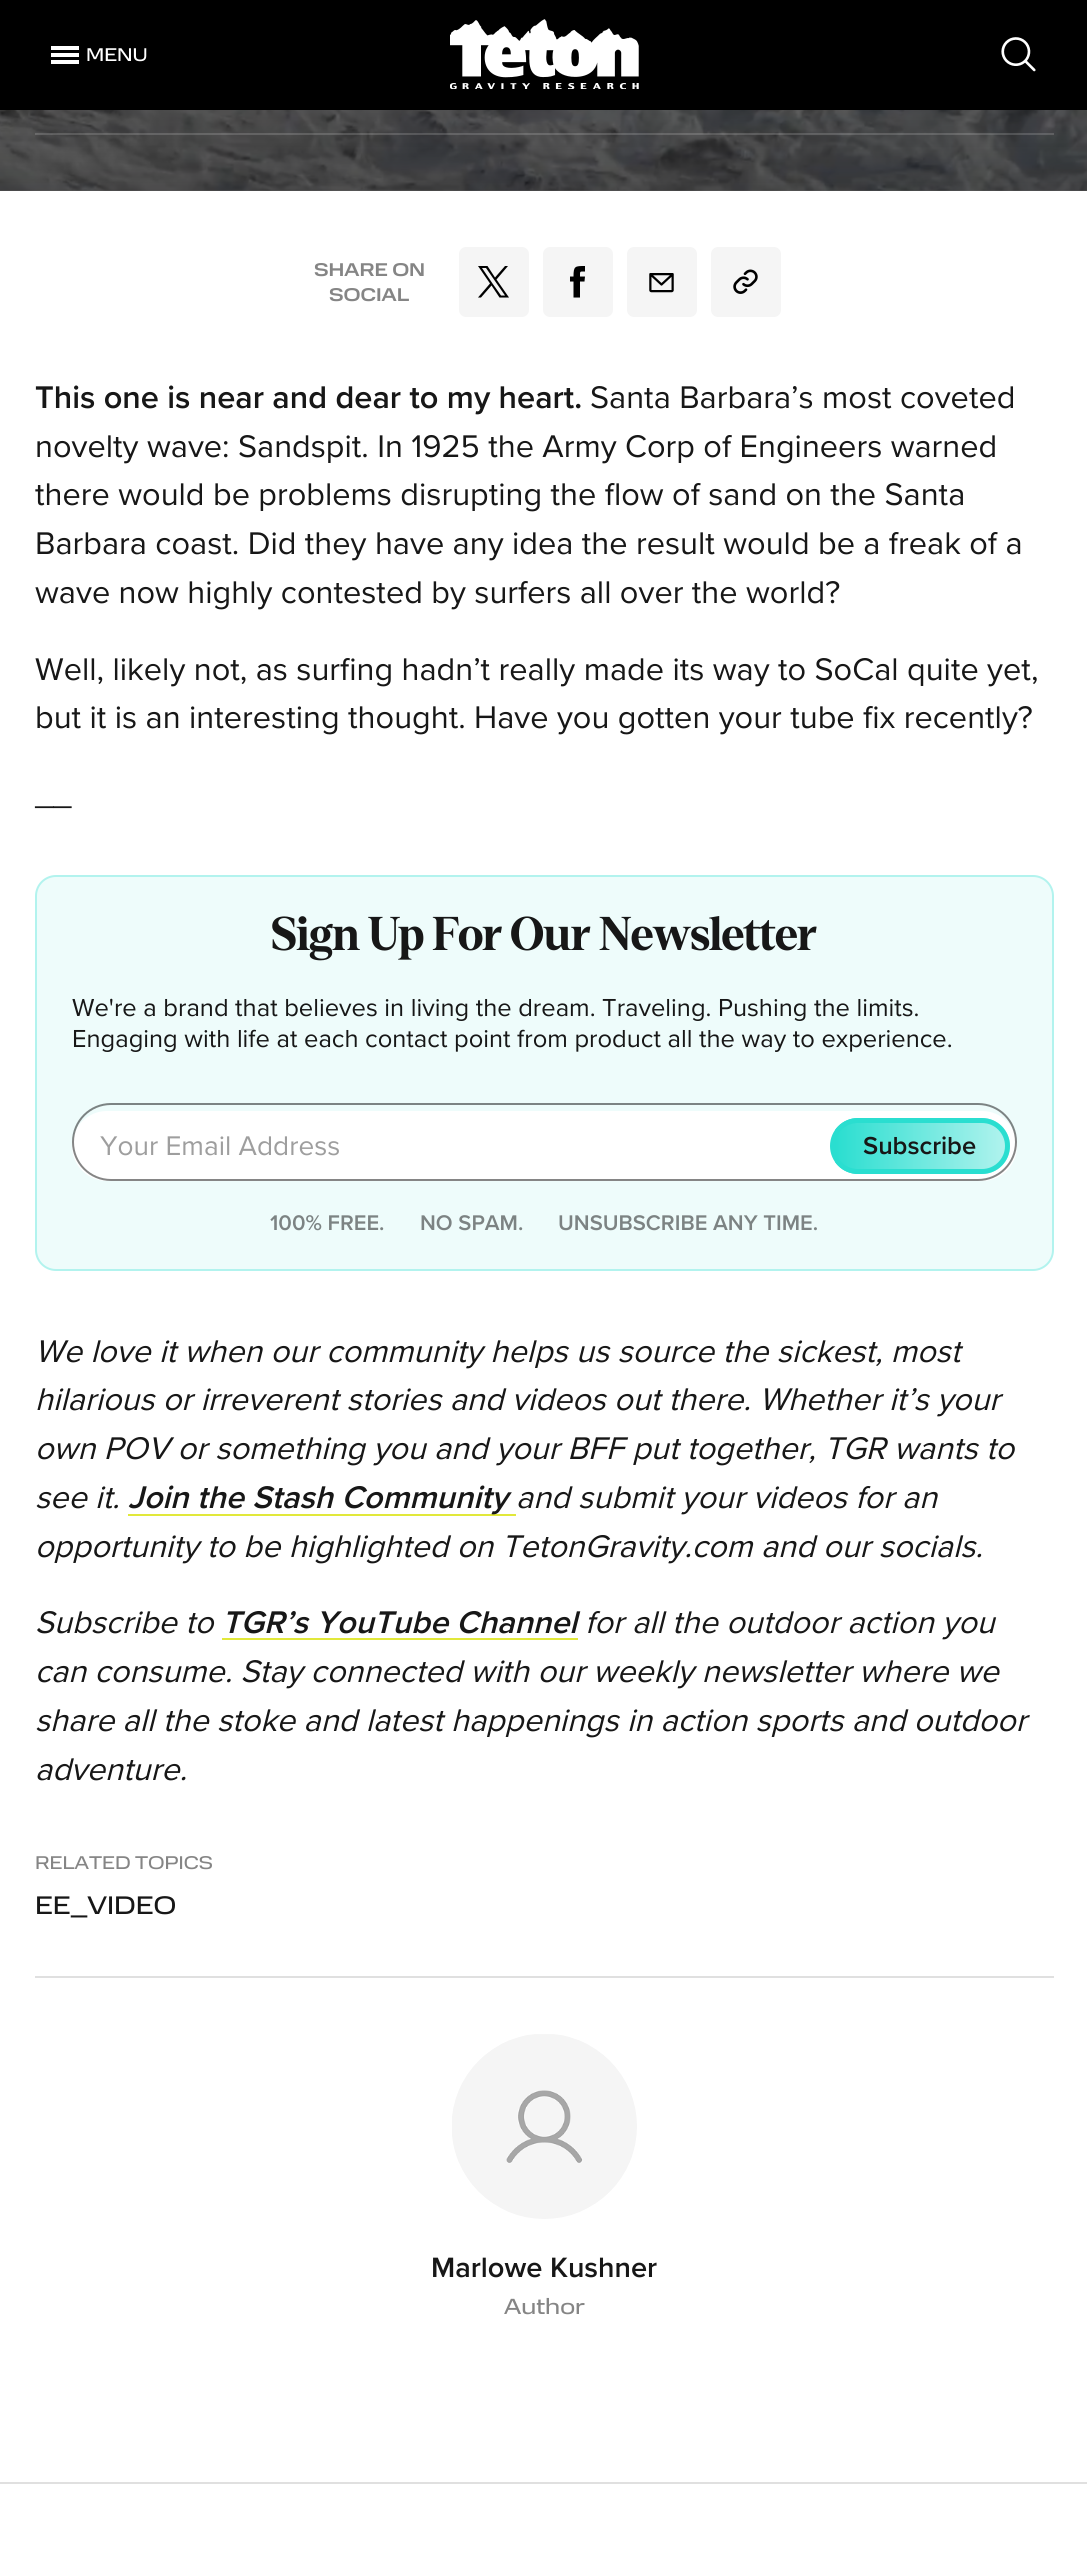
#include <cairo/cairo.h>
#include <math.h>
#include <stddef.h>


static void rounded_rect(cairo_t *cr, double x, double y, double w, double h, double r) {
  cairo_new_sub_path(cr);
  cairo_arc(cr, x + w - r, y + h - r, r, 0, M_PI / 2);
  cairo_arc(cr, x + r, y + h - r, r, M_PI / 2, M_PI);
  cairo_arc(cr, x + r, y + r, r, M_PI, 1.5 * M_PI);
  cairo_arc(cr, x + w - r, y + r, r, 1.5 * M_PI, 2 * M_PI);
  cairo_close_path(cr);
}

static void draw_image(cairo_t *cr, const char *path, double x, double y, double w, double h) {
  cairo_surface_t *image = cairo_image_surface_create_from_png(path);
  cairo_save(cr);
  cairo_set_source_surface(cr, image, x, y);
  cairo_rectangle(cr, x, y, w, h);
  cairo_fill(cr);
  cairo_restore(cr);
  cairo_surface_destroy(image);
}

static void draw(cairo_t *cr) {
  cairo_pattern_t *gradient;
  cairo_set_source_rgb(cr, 1, 1, 1);
  cairo_paint(cr);
  cairo_set_source_rgb(cr, 0, 0, 0);
  cairo_rectangle(cr, 0, 0, 1087, 110);
  cairo_fill(cr);
  cairo_set_source_rgb(cr, 1, 1, 1);
  cairo_rectangle(cr, 51, 46, 28, 4);
  cairo_fill(cr);
  cairo_rectangle(cr, 51, 53, 28, 4);
  cairo_fill(cr);
  cairo_rectangle(cr, 51, 60, 28, 4);
  cairo_fill(cr);
  draw_image(cr, "images/1.png", 450, 19, 189, 70);
  draw_image(cr, "images/2.png", 1001, 37, 35, 35);
  draw_image(cr, "images/3.png", 0, 110, 1087, 81);
  gradient = cairo_pattern_create_linear(544, -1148, 544, 191);
  cairo_pattern_add_color_stop_rgba(gradient, 0.5, 23 / 255.0, 23 / 255.0, 23 / 255.0, 0.16);
  cairo_pattern_add_color_stop_rgba(gradient, 0.9, 23 / 255.0, 23 / 255.0, 23 / 255.0, 0.48);
  cairo_pattern_add_color_stop_rgba(gradient, 1, 23 / 255.0, 23 / 255.0, 23 / 255.0, 0.64);
  cairo_set_source(cr, gradient);
  cairo_pattern_destroy(gradient);
  cairo_rectangle(cr, 0, 110, 1087, 81);
  cairo_fill(cr);
  cairo_set_source_rgba(cr, 1, 1, 1, 0.16);
  cairo_rectangle(cr, 35, 133, 1019, 2);
  cairo_fill(cr);
  cairo_set_source_rgb(cr, 245 / 255.0, 245 / 255.0, 245 / 255.0);
  rounded_rect(cr, 459, 247, 70, 70, 7);
  cairo_fill(cr);
  cairo_set_source_rgb(cr, 0, 0, 0);
  cairo_new_path(cr);
  cairo_move_to(cr, 496.5, 279.5);
  cairo_line_to(cr, 508, 266);
  cairo_line_to(cr, 505, 266);
  cairo_line_to(cr, 495, 277.5);
  cairo_line_to(cr, 487.5, 266);
  cairo_line_to(cr, 478, 266);
  cairo_line_to(cr, 490, 283.5);
  cairo_line_to(cr, 478, 297.5);
  cairo_line_to(cr, 481, 297.5);
  cairo_line_to(cr, 491.5, 285.5);
  cairo_line_to(cr, 499.5, 297.5);
  cairo_line_to(cr, 509, 297.5);
  cairo_close_path(cr);
  cairo_move_to(cr, 492.5, 283.5);
  cairo_line_to(cr, 482, 268);
  cairo_line_to(cr, 486, 268);
  cairo_line_to(cr, 505, 295.5);
  cairo_line_to(cr, 501, 295.5);
  cairo_close_path(cr);
  cairo_fill(cr);
  cairo_set_source_rgb(cr, 245 / 255.0, 245 / 255.0, 245 / 255.0);
  rounded_rect(cr, 543, 247, 70, 70, 7);
  cairo_fill(cr);
  cairo_set_source_rgb(cr, 0, 0, 0);
  cairo_new_path(cr);
  cairo_move_to(cr, 573.5, 297.5);
  cairo_line_to(cr, 580, 297.5);
  cairo_line_to(cr, 580, 281.5);
  cairo_line_to(cr, 584.5, 281.5);
  cairo_line_to(cr, 585, 276.5);
  cairo_line_to(cr, 580, 276.5);
  cairo_curve_to(cr, 580, 271, 579.5, 271.5, 585, 271.5);
  cairo_line_to(cr, 585, 266);
  cairo_curve_to(cr, 575, 266, 573.5, 266, 573.5, 276.5);
  cairo_line_to(cr, 570, 276.5);
  cairo_line_to(cr, 570, 281.5);
  cairo_line_to(cr, 573.5, 281.5);
  cairo_close_path(cr);
  cairo_fill(cr);
  draw_image(cr, "images/4.png", 627, 247, 70, 70);
  draw_image(cr, "images/5.png", 711, 247, 70, 70);
  cairo_set_source_rgb(cr, 238 / 255.0, 252 / 255.0, 251 / 255.0);
  rounded_rect(cr, 36, 876, 1017, 394, 20);
  cairo_fill_preserve(cr);
  cairo_set_source_rgb(cr, 178 / 255.0, 243 / 255.0, 238 / 255.0);
  cairo_stroke(cr);
  cairo_set_source_rgb(cr, 1, 1, 1);
  rounded_rect(cr, 72, 1111, 945, 70, 35);
  cairo_fill(cr);
  rounded_rect(cr, 73, 1104, 943, 76, 38);
  cairo_set_source_rgba(cr, 0, 0, 0, 0.48);
  cairo_stroke(cr);
  cairo_save(cr);
  rounded_rect(cr, 830, 1118, 180, 56, 28);
  cairo_clip(cr);
  gradient = cairo_pattern_create_linear(835, 1146, 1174, 1146);
  cairo_pattern_add_color_stop_rgba(gradient, 0, 42 / 255.0, 222 / 255.0, 208 / 255.0, 1);
  cairo_pattern_add_color_stop_rgba(gradient, 0.51, 178 / 255.0, 243 / 255.0, 238 / 255.0, 1);
  cairo_pattern_add_color_stop_rgba(gradient, 1, 42 / 255.0, 222 / 255.0, 208 / 255.0, 1);
  cairo_set_source(cr, gradient);
  cairo_pattern_destroy(gradient);
  cairo_new_path(cr);
  cairo_move_to(cr, 835, 1118);
  cairo_line_to(cr, 982, 1118);
  cairo_curve_to(cr, 997.5, 1118, 1010, 1130.5, 1010, 1146);
  cairo_curve_to(cr, 1010, 1161.5, 997.5, 1174, 982, 1174);
  cairo_line_to(cr, 835, 1174);
  cairo_close_path(cr);
  cairo_fill(cr);
  cairo_restore(cr);
  rounded_rect(cr, 832.5, 1120.5, 175, 51, 25.5);
  cairo_set_source_rgb(cr, 42 / 255.0, 222 / 255.0, 208 / 255.0);
  cairo_set_line_width(cr, 5);
  cairo_stroke(cr);
  cairo_set_source_rgb(cr, 225 / 255.0, 232 / 255.0, 58 / 255.0);
  cairo_rectangle(cr, 128, 1514, 388, 2);
  cairo_fill(cr);
  cairo_rectangle(cr, 222, 1638, 356, 2);
  cairo_fill(cr);
  cairo_set_source_rgb(cr, 224 / 255.0, 224 / 255.0, 224 / 255.0);
  cairo_rectangle(cr, 35, 1976, 1019, 2);
  cairo_fill(cr);
  draw_image(cr, "images/6.png", 452, 2034, 185, 185);
  cairo_rectangle(cr, 0, 2482, 1087, 2);
  cairo_fill(cr);
  cairo_select_font_face(cr, "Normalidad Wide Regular", CAIRO_FONT_SLANT_NORMAL, CAIRO_FONT_WEIGHT_NORMAL);
  cairo_set_font_size(cr, 18.5);
  cairo_set_source_rgb(cr, 1, 1, 1);
  cairo_move_to(cr, 86, 61);
  cairo_show_text(cr, "MENU");
  cairo_select_font_face(cr, "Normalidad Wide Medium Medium", CAIRO_FONT_SLANT_NORMAL, CAIRO_FONT_WEIGHT_NORMAL);
  cairo_set_source_rgb(cr, 133 / 255.0, 133 / 255.0, 133 / 255.0);
  cairo_move_to(cr, 314, 276);
  cairo_show_text(cr, "SHARE ON");
  cairo_move_to(cr, 329, 301);
  cairo_show_text(cr, "SOCIAL");
  cairo_select_font_face(cr, "Proxima Nova SemiBold", CAIRO_FONT_SLANT_NORMAL, CAIRO_FONT_WEIGHT_NORMAL);
  cairo_set_font_size(cr, 32.5);
  cairo_set_source_rgb(cr, 23 / 255.0, 23 / 255.0, 23 / 255.0);
  cairo_move_to(cr, 35, 408);
  cairo_show_text(cr, "This one is near and dear to my heart.");
  cairo_select_font_face(cr, "Proxima Nova", CAIRO_FONT_SLANT_NORMAL, CAIRO_FONT_WEIGHT_NORMAL);
  cairo_move_to(cr, 590, 408);
  cairo_show_text(cr, "Santa Barbara’s most coveted");
  cairo_move_to(cr, 35, 457);
  cairo_show_text(cr, "novelty wave: Sandspit. In 1925 the Army Corp of Engineers warned");
  cairo_move_to(cr, 35, 505);
  cairo_show_text(cr, "there would be problems disrupting the flow of sand on the Santa");
  cairo_move_to(cr, 35, 554);
  cairo_show_text(cr, "Barbara coast. Did they have any idea the result would be a freak of a");
  cairo_move_to(cr, 35, 603);
  cairo_show_text(cr, "wave now highly contested by surfers all over the world?");
  cairo_move_to(cr, 35, 680);
  cairo_show_text(cr, "Well, likely not, as surfing hadn’t really made its way to SoCal quite yet,");
  cairo_move_to(cr, 35, 728);
  cairo_show_text(cr, "but it is an interesting thought. Have you gotten your tube fix recently?");
  cairo_move_to(cr, 35, 805);
  cairo_show_text(cr, "__");
  cairo_select_font_face(cr, "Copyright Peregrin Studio", CAIRO_FONT_SLANT_NORMAL, CAIRO_FONT_WEIGHT_BOLD);
  cairo_set_font_size(cr, 46);
  cairo_move_to(cr, 272, 950);
  cairo_show_text(cr, "Sign Up For Our Newsletter");
  cairo_select_font_face(cr, "Proxima Nova", CAIRO_FONT_SLANT_NORMAL, CAIRO_FONT_WEIGHT_NORMAL);
  cairo_set_font_size(cr, 25.5);
  cairo_move_to(cr, 72, 1016);
  cairo_show_text(cr, "We're a brand that believes in living the dream. Traveling. Pushing the limits.");
  cairo_move_to(cr, 72, 1047);
  cairo_show_text(cr, "Engaging with life at each contact point from product all the way to experience.");
  cairo_set_font_size(cr, 28);
  cairo_set_source_rgb(cr, 158 / 255.0, 158 / 255.0, 158 / 255.0);
  cairo_move_to(cr, 100, 1155);
  cairo_show_text(cr, "Your Email Address");
  cairo_select_font_face(cr, "Proxima Nova SemiBold", CAIRO_FONT_SLANT_NORMAL, CAIRO_FONT_WEIGHT_NORMAL);
  cairo_set_font_size(cr, 25.5);
  cairo_set_source_rgb(cr, 23 / 255.0, 23 / 255.0, 23 / 255.0);
  cairo_move_to(cr, 863, 1154);
  cairo_show_text(cr, "Subscribe");
  cairo_set_font_size(cr, 22);
  cairo_set_source_rgb(cr, 124 / 255.0, 131 / 255.0, 131 / 255.0);
  cairo_move_to(cr, 270, 1230);
  cairo_show_text(cr, "100% FREE.");
  cairo_move_to(cr, 420, 1230);
  cairo_show_text(cr, "NO SPAM.");
  cairo_move_to(cr, 558, 1230);
  cairo_show_text(cr, "UNSUBSCRIBE ANY TIME.");
  cairo_select_font_face(cr, "Proxima Nova", CAIRO_FONT_SLANT_ITALIC, CAIRO_FONT_WEIGHT_NORMAL);
  cairo_set_font_size(cr, 32.5);
  cairo_set_source_rgb(cr, 23 / 255.0, 23 / 255.0, 23 / 255.0);
  cairo_move_to(cr, 35, 1362);
  cairo_show_text(cr, "We love it when our community helps us source the sickest, most");
  cairo_move_to(cr, 35, 1410);
  cairo_show_text(cr, "hilarious or irreverent stories and videos out there. Whether it’s your");
  cairo_move_to(cr, 35, 1459);
  cairo_show_text(cr, "own POV or something you and your BFF put together, TGR wants to");
  cairo_move_to(cr, 35, 1508);
  cairo_show_text(cr, "see it.");
  cairo_select_font_face(cr, "Proxima Nova SemiBold", CAIRO_FONT_SLANT_ITALIC, CAIRO_FONT_WEIGHT_NORMAL);
  cairo_move_to(cr, 128, 1508);
  cairo_show_text(cr, "Join the Stash Community");
  cairo_select_font_face(cr, "Proxima Nova", CAIRO_FONT_SLANT_ITALIC, CAIRO_FONT_WEIGHT_NORMAL);
  cairo_move_to(cr, 516, 1508);
  cairo_show_text(cr, "and submit your videos for an");
  cairo_move_to(cr, 35, 1557);
  cairo_show_text(cr, "opportunity to be highlighted on TetonGravity.com and our socials.");
  cairo_move_to(cr, 35, 1633);
  cairo_show_text(cr, "Subscribe to");
  cairo_select_font_face(cr, "Proxima Nova SemiBold", CAIRO_FONT_SLANT_ITALIC, CAIRO_FONT_WEIGHT_NORMAL);
  cairo_move_to(cr, 222, 1633);
  cairo_show_text(cr, "TGR’s YouTube Channel");
  cairo_select_font_face(cr, "Proxima Nova", CAIRO_FONT_SLANT_ITALIC, CAIRO_FONT_WEIGHT_NORMAL);
  cairo_move_to(cr, 585, 1633);
  cairo_show_text(cr, "for all the outdoor action you");
  cairo_move_to(cr, 35, 1682);
  cairo_show_text(cr, "can consume. Stay connected with our weekly newsletter where we");
  cairo_move_to(cr, 35, 1731);
  cairo_show_text(cr, "share all the stoke and latest happenings in action sports and outdoor");
  cairo_move_to(cr, 35, 1780);
  cairo_show_text(cr, "adventure.");
  cairo_select_font_face(cr, "Normalidad Wide Regular", CAIRO_FONT_SLANT_NORMAL, CAIRO_FONT_WEIGHT_NORMAL);
  cairo_set_font_size(cr, 18.5);
  cairo_set_source_rgb(cr, 133 / 255.0, 133 / 255.0, 133 / 255.0);
  cairo_move_to(cr, 35, 1869);
  cairo_show_text(cr, "RELATED TOPICS");
  cairo_set_font_size(cr, 25.5);
  cairo_set_source_rgb(cr, 23 / 255.0, 23 / 255.0, 23 / 255.0);
  cairo_move_to(cr, 35, 1914);
  cairo_show_text(cr, "EE_VIDEO");
  cairo_select_font_face(cr, "Proxima Nova SemiBold", CAIRO_FONT_SLANT_NORMAL, CAIRO_FONT_WEIGHT_NORMAL);
  cairo_set_font_size(cr, 29);
  cairo_move_to(cr, 431, 2277);
  cairo_show_text(cr, "Marlowe Kushner");
  cairo_select_font_face(cr, "Normalidad Wide Regular", CAIRO_FONT_SLANT_NORMAL, CAIRO_FONT_WEIGHT_NORMAL);
  cairo_set_font_size(cr, 22);
  cairo_set_source_rgb(cr, 133 / 255.0, 133 / 255.0, 133 / 255.0);
  cairo_move_to(cr, 504, 2314);
  cairo_show_text(cr, "Author");
}

int main(void) {
  cairo_surface_t *surface = cairo_image_surface_create(CAIRO_FORMAT_RGB24, 1087, 2570);
  cairo_t *cr = cairo_create(surface);
  cairo_font_options_t *options = cairo_font_options_create();
  cairo_font_options_set_hint_metrics(options, CAIRO_HINT_METRICS_OFF);
  cairo_font_options_set_hint_style(options, CAIRO_HINT_STYLE_NONE);
  cairo_set_font_options(cr, options);
  cairo_set_miter_limit(cr, 4);
  draw(cr);
  cairo_surface_write_to_png(surface, "out.png");
  cairo_font_options_destroy(options);
  cairo_destroy(cr);
  cairo_surface_destroy(surface);
  return 0;
}
